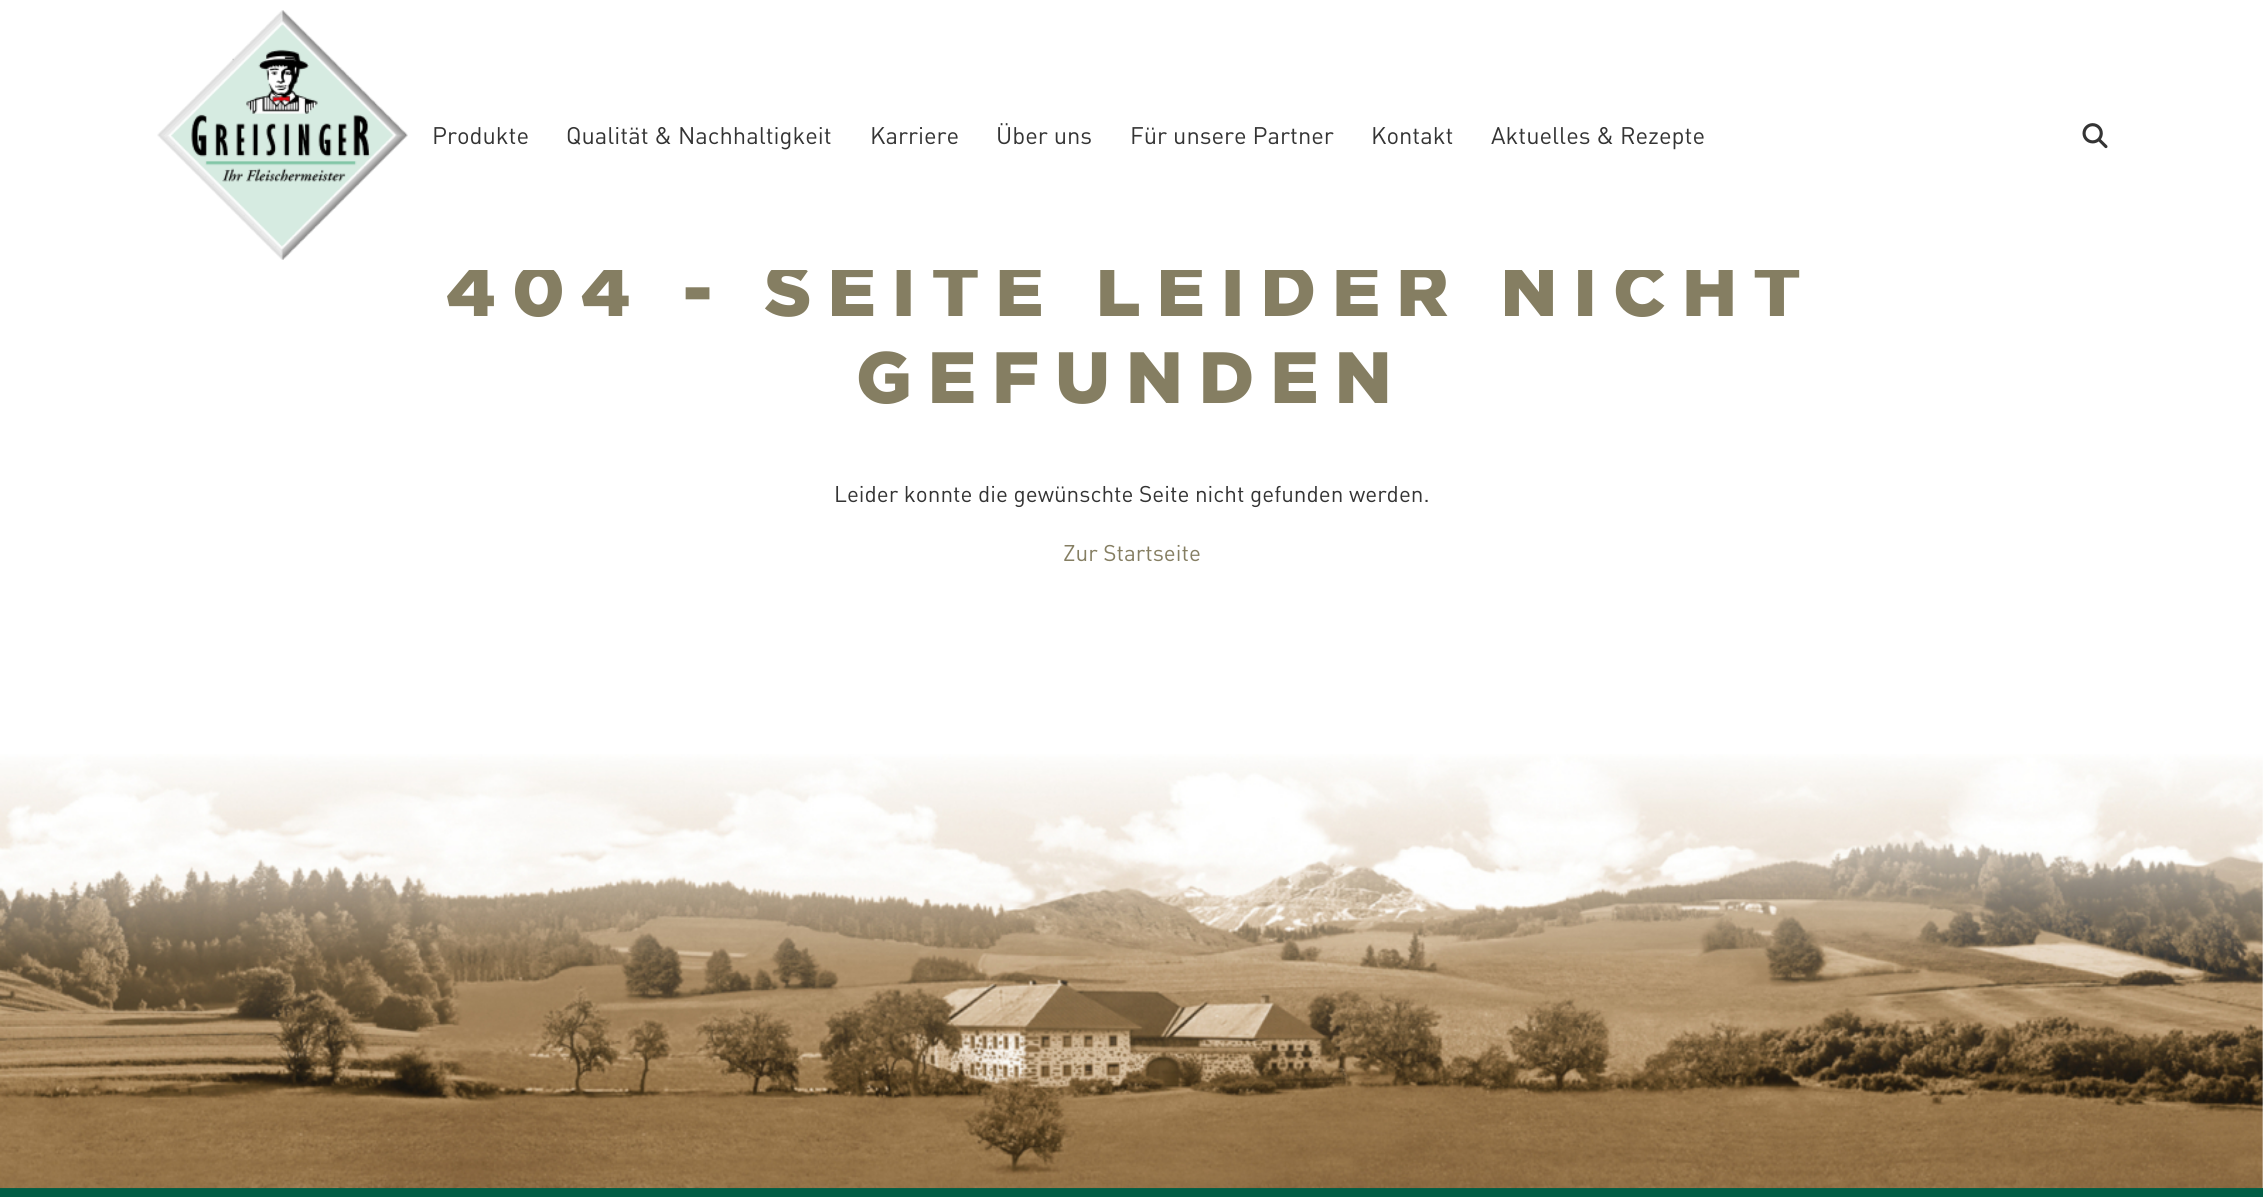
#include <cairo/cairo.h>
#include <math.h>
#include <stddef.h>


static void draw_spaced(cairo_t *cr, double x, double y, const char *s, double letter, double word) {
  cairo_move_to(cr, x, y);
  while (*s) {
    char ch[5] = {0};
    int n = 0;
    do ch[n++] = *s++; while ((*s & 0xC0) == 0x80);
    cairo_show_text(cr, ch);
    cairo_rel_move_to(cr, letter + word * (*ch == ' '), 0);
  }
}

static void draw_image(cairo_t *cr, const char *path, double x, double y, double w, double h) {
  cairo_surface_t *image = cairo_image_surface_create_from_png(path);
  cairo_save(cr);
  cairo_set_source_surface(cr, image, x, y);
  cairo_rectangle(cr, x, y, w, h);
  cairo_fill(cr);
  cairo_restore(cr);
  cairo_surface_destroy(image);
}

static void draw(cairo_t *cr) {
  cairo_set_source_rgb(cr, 1, 1, 1);
  cairo_paint(cr);
  draw_image(cr, "images/1.png", 157, 10, 251, 250);
  draw_image(cr, "images/2.png", 2082, 123, 26, 26);
  cairo_set_source_rgb(cr, 0, 94 / 255.0, 69 / 255.0);
  cairo_rectangle(cr, 0, 1188, 2263, 9);
  cairo_fill(cr);
  draw_image(cr, "images/3.png", 0, 754, 2263, 435);
  cairo_select_font_face(cr, "DIN", CAIRO_FONT_SLANT_NORMAL, CAIRO_FONT_WEIGHT_NORMAL);
  cairo_set_font_size(cr, 23.75);
  cairo_set_source_rgb(cr, 52 / 255.0, 52 / 255.0, 52 / 255.0);
  cairo_move_to(cr, 432, 144);
  cairo_show_text(cr, "Produkte");
  cairo_move_to(cr, 566, 144);
  cairo_show_text(cr, "Qualität & Nachhaltigkeit");
  cairo_move_to(cr, 870, 144);
  cairo_show_text(cr, "Karriere");
  cairo_move_to(cr, 996, 144);
  cairo_show_text(cr, "Über uns");
  cairo_move_to(cr, 1130, 144);
  cairo_show_text(cr, "Für unsere Partner");
  cairo_move_to(cr, 1371, 144);
  cairo_show_text(cr, "Kontakt");
  cairo_move_to(cr, 1491, 144);
  cairo_show_text(cr, "Aktuelles & Rezepte");
  cairo_select_font_face(cr, "Gotham Black", CAIRO_FONT_SLANT_NORMAL, CAIRO_FONT_WEIGHT_NORMAL);
  cairo_set_font_size(cr, 72.5);
  cairo_set_source_rgb(cr, 133 / 255.0, 126 / 255.0, 98 / 255.0);
  draw_spaced(cr, 446, 316, "404 - SEITE LEIDER NICHT", 15.95, 0);
  cairo_set_source_rgb(cr, 1, 1, 1);
  cairo_rectangle(cr, 469, 264, 1331, 6);
  cairo_fill(cr);
  cairo_set_source_rgb(cr, 133 / 255.0, 126 / 255.0, 98 / 255.0);
  draw_spaced(cr, 856, 403, "GEFUNDEN", 15.95, 0);
  cairo_select_font_face(cr, "DIN", CAIRO_FONT_SLANT_NORMAL, CAIRO_FONT_WEIGHT_NORMAL);
  cairo_set_font_size(cr, 22.5);
  cairo_set_source_rgb(cr, 52 / 255.0, 52 / 255.0, 52 / 255.0);
  cairo_move_to(cr, 834, 502);
  cairo_show_text(cr, "Leider konnte die gewünschte Seite nicht gefunden werden.");
  cairo_set_source_rgb(cr, 133 / 255.0, 126 / 255.0, 98 / 255.0);
  cairo_move_to(cr, 1063, 561);
  cairo_show_text(cr, "Zur Startseite");
}

int main(void) {
  cairo_surface_t *surface = cairo_image_surface_create(CAIRO_FORMAT_RGB24, 2263, 1197);
  cairo_t *cr = cairo_create(surface);
  cairo_font_options_t *options = cairo_font_options_create();
  cairo_font_options_set_hint_metrics(options, CAIRO_HINT_METRICS_OFF);
  cairo_font_options_set_hint_style(options, CAIRO_HINT_STYLE_NONE);
  cairo_set_font_options(cr, options);
  cairo_set_miter_limit(cr, 4);
  draw(cr);
  cairo_surface_write_to_png(surface, "out.png");
  cairo_font_options_destroy(options);
  cairo_destroy(cr);
  cairo_surface_destroy(surface);
  return 0;
}
